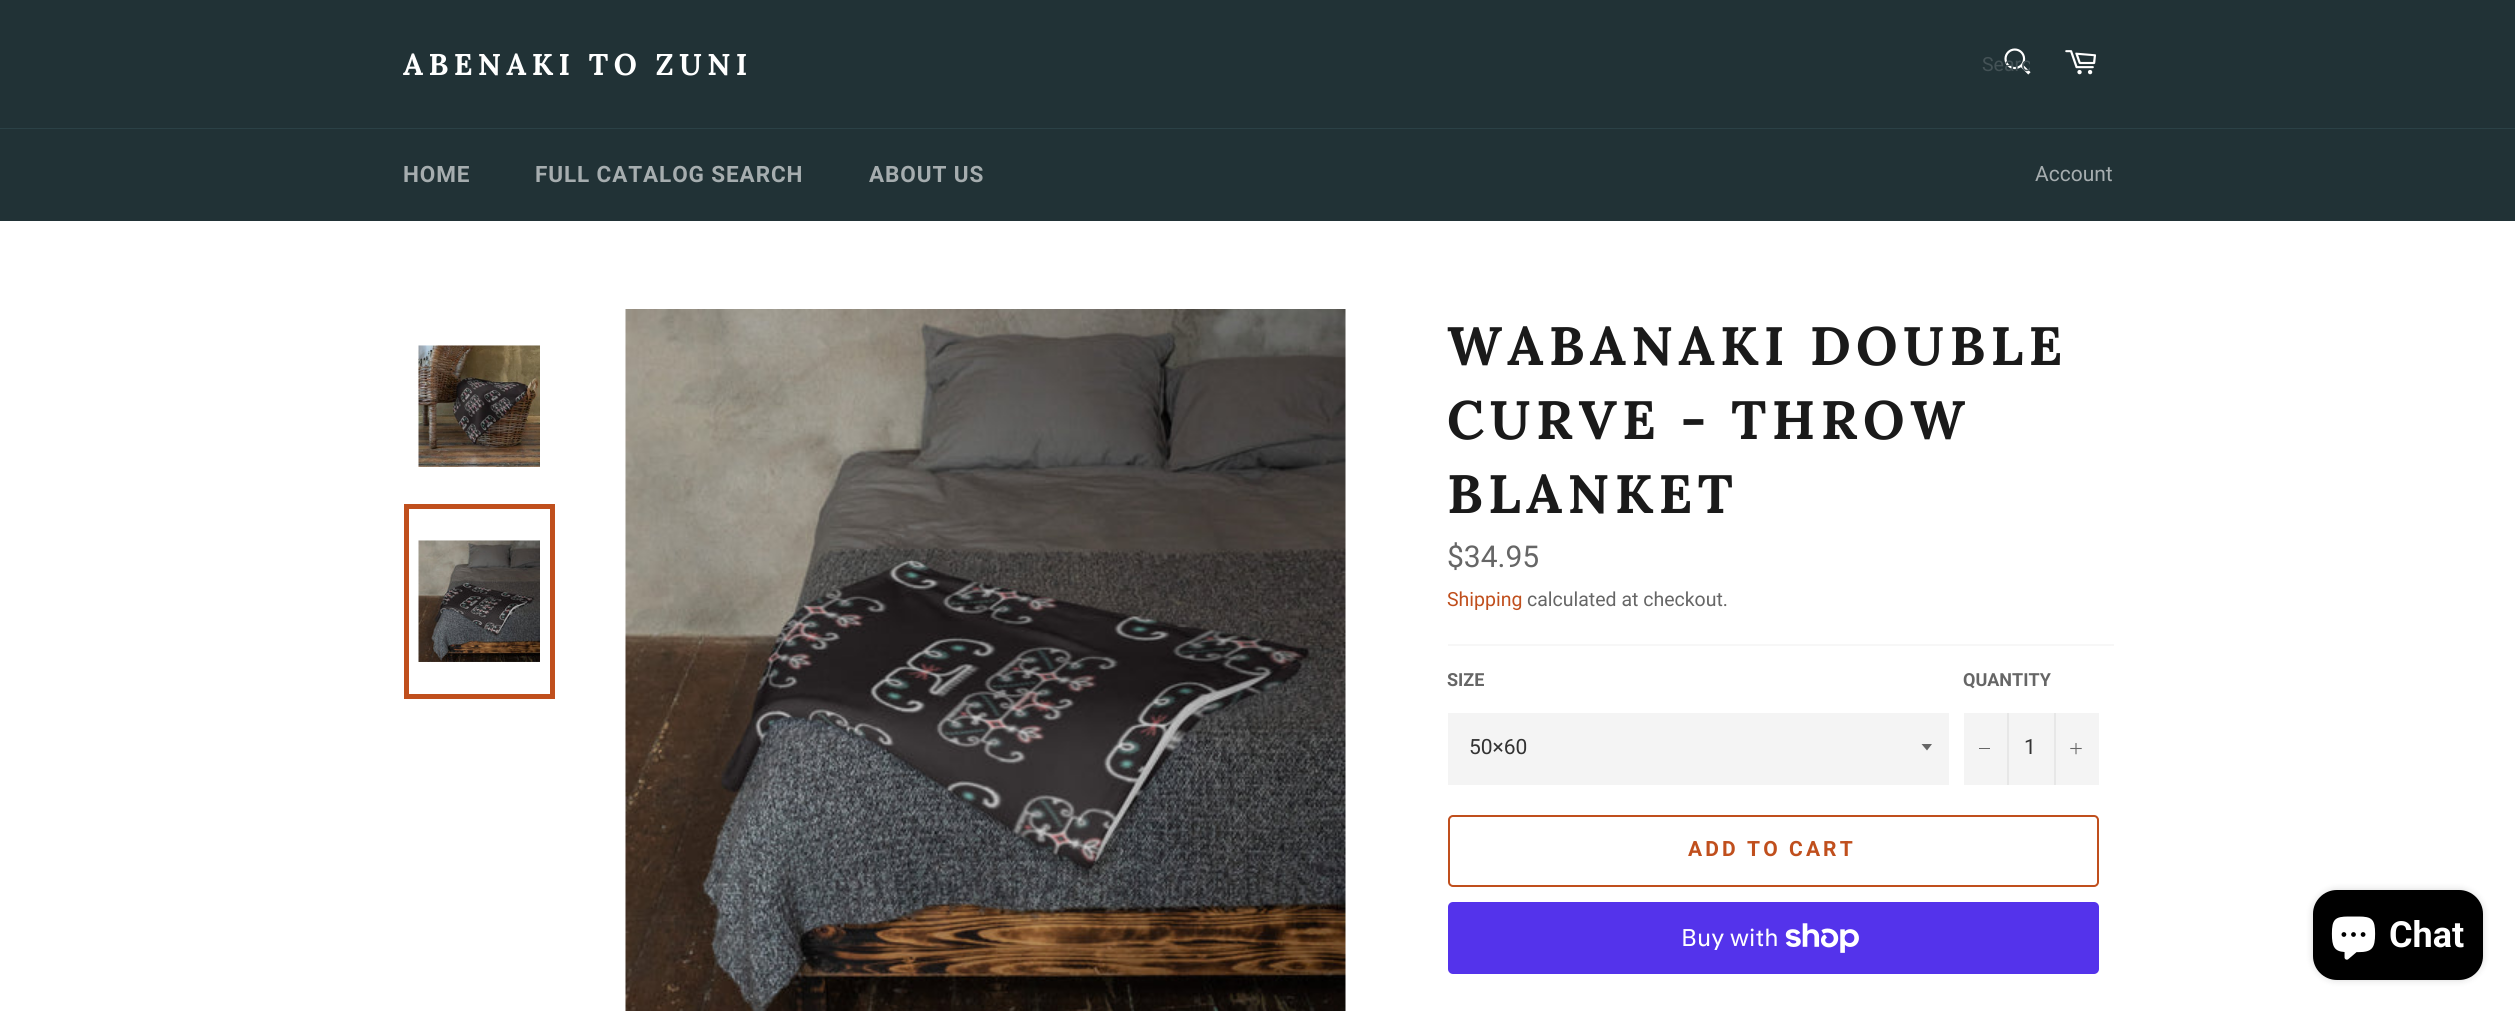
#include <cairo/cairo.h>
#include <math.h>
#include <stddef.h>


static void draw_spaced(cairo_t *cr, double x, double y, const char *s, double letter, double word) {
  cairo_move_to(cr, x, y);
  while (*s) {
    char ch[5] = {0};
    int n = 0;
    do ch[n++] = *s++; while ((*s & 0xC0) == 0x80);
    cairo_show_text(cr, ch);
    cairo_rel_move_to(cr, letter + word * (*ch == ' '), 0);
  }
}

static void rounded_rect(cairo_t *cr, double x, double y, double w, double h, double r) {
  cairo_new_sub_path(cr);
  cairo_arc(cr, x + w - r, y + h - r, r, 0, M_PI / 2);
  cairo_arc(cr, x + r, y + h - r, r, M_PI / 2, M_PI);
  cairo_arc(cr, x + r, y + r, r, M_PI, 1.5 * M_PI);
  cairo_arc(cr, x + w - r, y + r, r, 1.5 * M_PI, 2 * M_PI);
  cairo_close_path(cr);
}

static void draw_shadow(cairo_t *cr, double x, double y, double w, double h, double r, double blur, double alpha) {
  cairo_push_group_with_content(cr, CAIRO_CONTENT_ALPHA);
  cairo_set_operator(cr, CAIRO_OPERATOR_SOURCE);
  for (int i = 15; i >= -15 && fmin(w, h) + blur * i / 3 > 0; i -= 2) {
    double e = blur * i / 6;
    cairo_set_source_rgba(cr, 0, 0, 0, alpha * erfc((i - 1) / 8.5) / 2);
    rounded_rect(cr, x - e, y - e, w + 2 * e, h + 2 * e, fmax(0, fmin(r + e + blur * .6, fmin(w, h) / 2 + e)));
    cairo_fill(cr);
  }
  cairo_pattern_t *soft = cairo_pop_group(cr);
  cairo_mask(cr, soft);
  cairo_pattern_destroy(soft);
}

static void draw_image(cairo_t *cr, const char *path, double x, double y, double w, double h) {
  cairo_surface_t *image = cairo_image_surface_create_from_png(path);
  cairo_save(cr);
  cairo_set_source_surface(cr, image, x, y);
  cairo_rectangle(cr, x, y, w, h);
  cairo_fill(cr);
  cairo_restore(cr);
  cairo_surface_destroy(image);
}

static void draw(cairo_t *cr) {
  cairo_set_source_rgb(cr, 33 / 255.0, 50 / 255.0, 54 / 255.0);
  cairo_paint(cr);
  draw_image(cr, "images/1.png", 2004, 48, 27, 27);
  draw_image(cr, "images/2.png", 2065, 50, 31, 25);
  cairo_set_source_rgb(cr, 43 / 255.0, 65 / 255.0, 70 / 255.0);
  cairo_rectangle(cr, 0, 128, 2515, 1);
  cairo_fill(cr);
  cairo_set_source_rgb(cr, 1, 1, 1);
  cairo_rectangle(cr, 0, 221, 2515, 790);
  cairo_fill(cr);
  draw_image(cr, "images/3.png", 418, 345, 122, 122);
  draw_image(cr, "images/4.png", 418, 540, 122, 122);
  cairo_rectangle(cr, 406.5, 506.5, 146, 190);
  cairo_set_source_rgb(cr, 192 / 255.0, 79 / 255.0, 29 / 255.0);
  cairo_set_line_width(cr, 5);
  cairo_stroke(cr);
  draw_image(cr, "images/5.png", 625, 309, 721, 702);
  cairo_set_source_rgb(cr, 247 / 255.0, 247 / 255.0, 247 / 255.0);
  cairo_rectangle(cr, 1448, 644, 666, 2);
  cairo_fill(cr);
  cairo_set_source_rgb(cr, 244 / 255.0, 244 / 255.0, 244 / 255.0);
  cairo_rectangle(cr, 1448, 713, 501, 72);
  cairo_fill(cr);
  cairo_set_source_rgb(cr, 102 / 255.0, 102 / 255.0, 102 / 255.0);
  cairo_new_path(cr);
  cairo_move_to(cr, 1921.5, 744);
  cairo_line_to(cr, 1927, 750.5);
  cairo_line_to(cr, 1932, 744);
  cairo_close_path(cr);
  cairo_fill(cr);
  cairo_set_source_rgb(cr, 244 / 255.0, 244 / 255.0, 244 / 255.0);
  cairo_rectangle(cr, 1964, 713, 135, 72);
  cairo_fill(cr);
  cairo_set_source_rgb(cr, 231 / 255.0, 231 / 255.0, 231 / 255.0);
  cairo_rectangle(cr, 2007, 713, 2, 72);
  cairo_fill(cr);
  cairo_set_source_rgb(cr, 102 / 255.0, 102 / 255.0, 102 / 255.0);
  cairo_rectangle(cr, 1979, 748, 11, 1);
  cairo_fill(cr);
  cairo_set_source_rgb(cr, 231 / 255.0, 231 / 255.0, 231 / 255.0);
  cairo_rectangle(cr, 2054, 713, 2, 72);
  cairo_fill(cr);
  draw_image(cr, "images/6.png", 2070, 743, 12, 12);
  rounded_rect(cr, 1449, 816, 649, 70, 4);
  cairo_set_source_rgb(cr, 192 / 255.0, 79 / 255.0, 29 / 255.0);
  cairo_set_line_width(cr, 2);
  cairo_stroke(cr);
  cairo_set_source_rgb(cr, 84 / 255.0, 51 / 255.0, 235 / 255.0);
  rounded_rect(cr, 1448, 902, 651, 72, 5);
  cairo_fill(cr);
  draw_image(cr, "images/7.png", 1785, 923, 74, 30);
  cairo_set_source_rgb(cr, 0, 0, 0);
  draw_shadow(cr, 2313, 890, 170, 90, 24, 4, 0.15);
  cairo_set_source_rgb(cr, 0, 0, 0);
  rounded_rect(cr, 2313, 890, 170, 90, 24);
  cairo_fill(cr);
  draw_image(cr, "images/8.png", 2331, 916, 45, 44);
  cairo_select_font_face(cr, "Lora", CAIRO_FONT_SLANT_NORMAL, CAIRO_FONT_WEIGHT_BOLD);
  cairo_set_font_size(cr, 30);
  cairo_set_source_rgb(cr, 1, 1, 1);
  draw_spaced(cr, 403, 75, "ABENAKI TO ZUNI", 5.4, 0);
  cairo_save(cr);
  cairo_rectangle(cr, 1982, 53, 48, 22);
  cairo_clip(cr);
  cairo_select_font_face(cr, "Roboto", CAIRO_FONT_SLANT_NORMAL, CAIRO_FONT_WEIGHT_NORMAL);
  cairo_set_font_size(cr, 19.5);
  cairo_set_source_rgb(cr, 68 / 255.0, 82 / 255.0, 86 / 255.0);
  cairo_move_to(cr, 1982, 71);
  cairo_show_text(cr, "Searc");
  cairo_restore(cr);
  cairo_select_font_face(cr, "Roboto", CAIRO_FONT_SLANT_NORMAL, CAIRO_FONT_WEIGHT_BOLD);
  cairo_set_font_size(cr, 22.5);
  cairo_set_source_rgb(cr, 166 / 255.0, 173 / 255.0, 175 / 255.0);
  draw_spaced(cr, 403, 182, "HOME", 0.9, 0);
  draw_spaced(cr, 535, 182, "FULL CATALOG SEARCH", 0.9, 0);
  draw_spaced(cr, 869, 182, "ABOUT US", 0.9, 0);
  cairo_select_font_face(cr, "Roboto", CAIRO_FONT_SLANT_NORMAL, CAIRO_FONT_WEIGHT_NORMAL);
  cairo_set_font_size(cr, 21);
  cairo_move_to(cr, 2035, 181);
  cairo_show_text(cr, "Account");
  cairo_select_font_face(cr, "Lora", CAIRO_FONT_SLANT_NORMAL, CAIRO_FONT_WEIGHT_BOLD);
  cairo_set_font_size(cr, 54);
  cairo_set_source_rgb(cr, 26 / 255.0, 26 / 255.0, 26 / 255.0);
  draw_spaced(cr, 1447, 365, "WABANAKI DOUBLE", 5.4, 0);
  draw_spaced(cr, 1447, 439, "CURVE - THROW", 5.4, 0);
  draw_spaced(cr, 1447, 513, "BLANKET", 5.4, 0);
  cairo_select_font_face(cr, "Roboto", CAIRO_FONT_SLANT_NORMAL, CAIRO_FONT_WEIGHT_NORMAL);
  cairo_set_font_size(cr, 30);
  cairo_set_source_rgb(cr, 102 / 255.0, 102 / 255.0, 102 / 255.0);
  cairo_move_to(cr, 1447, 567);
  cairo_show_text(cr, "$34.95");
  cairo_set_font_size(cr, 19.5);
  cairo_set_source_rgb(cr, 192 / 255.0, 79 / 255.0, 29 / 255.0);
  cairo_move_to(cr, 1447, 606);
  cairo_show_text(cr, "Shipping");
  cairo_set_source_rgb(cr, 102 / 255.0, 102 / 255.0, 102 / 255.0);
  cairo_move_to(cr, 1527, 606);
  cairo_show_text(cr, "calculated at checkout.");
  cairo_select_font_face(cr, "Roboto", CAIRO_FONT_SLANT_NORMAL, CAIRO_FONT_WEIGHT_BOLD);
  cairo_set_font_size(cr, 18);
  cairo_move_to(cr, 1447, 686);
  cairo_show_text(cr, "SIZE");
  cairo_select_font_face(cr, "Roboto", CAIRO_FONT_SLANT_NORMAL, CAIRO_FONT_WEIGHT_NORMAL);
  cairo_set_font_size(cr, 21);
  cairo_set_source_rgb(cr, 51 / 255.0, 51 / 255.0, 51 / 255.0);
  cairo_move_to(cr, 1469, 754);
  cairo_show_text(cr, "50×60");
  cairo_select_font_face(cr, "Roboto", CAIRO_FONT_SLANT_NORMAL, CAIRO_FONT_WEIGHT_BOLD);
  cairo_set_font_size(cr, 18);
  cairo_set_source_rgb(cr, 102 / 255.0, 102 / 255.0, 102 / 255.0);
  cairo_move_to(cr, 1963, 686);
  cairo_show_text(cr, "QUANTITY");
  cairo_select_font_face(cr, "Roboto", CAIRO_FONT_SLANT_NORMAL, CAIRO_FONT_WEIGHT_NORMAL);
  cairo_set_font_size(cr, 21);
  cairo_set_source_rgb(cr, 51 / 255.0, 51 / 255.0, 51 / 255.0);
  cairo_move_to(cr, 2024, 754);
  cairo_show_text(cr, "1");
  cairo_select_font_face(cr, "Roboto", CAIRO_FONT_SLANT_NORMAL, CAIRO_FONT_WEIGHT_BOLD);
  cairo_set_source_rgb(cr, 192 / 255.0, 79 / 255.0, 29 / 255.0);
  draw_spaced(cr, 1688, 856, "ADD TO CART", 3.1, 0);
  cairo_select_font_face(cr, "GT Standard", CAIRO_FONT_SLANT_NORMAL, CAIRO_FONT_WEIGHT_NORMAL);
  cairo_set_font_size(cr, 24);
  cairo_set_source_rgb(cr, 1, 1, 1);
  cairo_move_to(cr, 1681, 946);
  cairo_show_text(cr, "Buy with");
  cairo_select_font_face(cr, "Roboto", CAIRO_FONT_SLANT_NORMAL, CAIRO_FONT_WEIGHT_BOLD);
  cairo_set_font_size(cr, 36);
  cairo_move_to(cr, 2389, 947);
  cairo_show_text(cr, "Chat");
}

int main(void) {
  cairo_surface_t *surface = cairo_image_surface_create(CAIRO_FORMAT_RGB24, 2515, 1011);
  cairo_t *cr = cairo_create(surface);
  cairo_font_options_t *options = cairo_font_options_create();
  cairo_font_options_set_hint_metrics(options, CAIRO_HINT_METRICS_OFF);
  cairo_font_options_set_hint_style(options, CAIRO_HINT_STYLE_NONE);
  cairo_set_font_options(cr, options);
  cairo_set_miter_limit(cr, 4);
  draw(cr);
  cairo_surface_write_to_png(surface, "out.png");
  cairo_font_options_destroy(options);
  cairo_destroy(cr);
  cairo_surface_destroy(surface);
  return 0;
}
